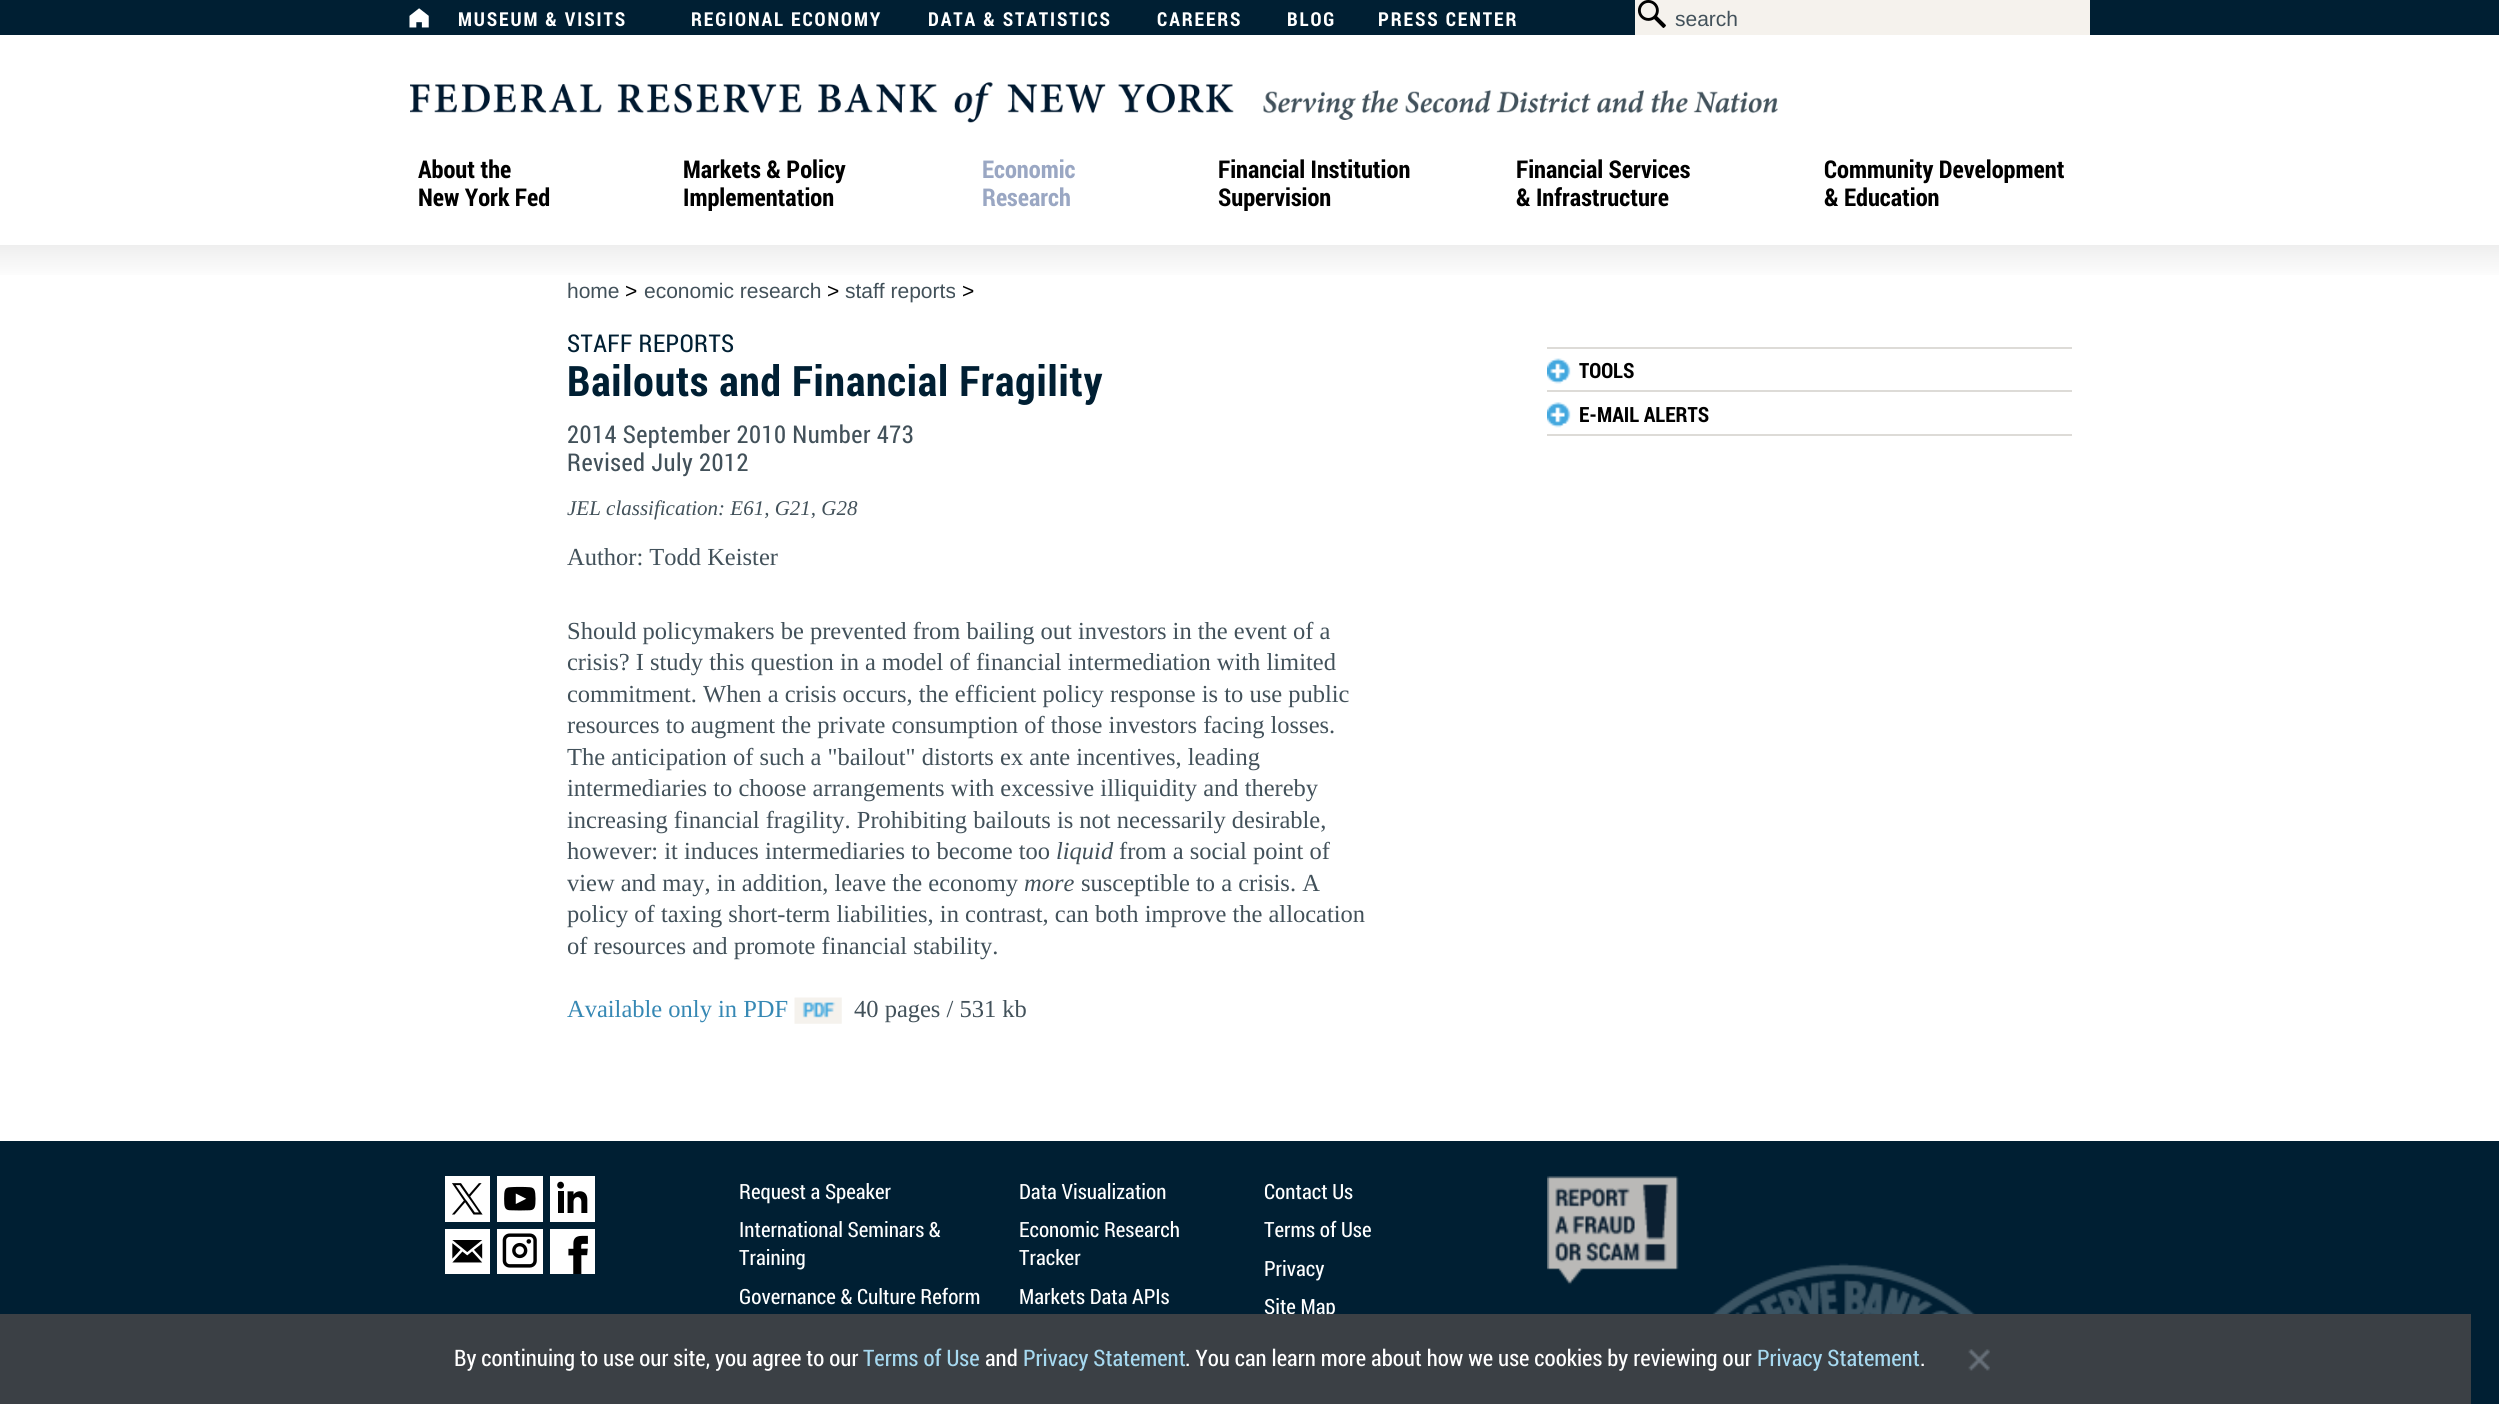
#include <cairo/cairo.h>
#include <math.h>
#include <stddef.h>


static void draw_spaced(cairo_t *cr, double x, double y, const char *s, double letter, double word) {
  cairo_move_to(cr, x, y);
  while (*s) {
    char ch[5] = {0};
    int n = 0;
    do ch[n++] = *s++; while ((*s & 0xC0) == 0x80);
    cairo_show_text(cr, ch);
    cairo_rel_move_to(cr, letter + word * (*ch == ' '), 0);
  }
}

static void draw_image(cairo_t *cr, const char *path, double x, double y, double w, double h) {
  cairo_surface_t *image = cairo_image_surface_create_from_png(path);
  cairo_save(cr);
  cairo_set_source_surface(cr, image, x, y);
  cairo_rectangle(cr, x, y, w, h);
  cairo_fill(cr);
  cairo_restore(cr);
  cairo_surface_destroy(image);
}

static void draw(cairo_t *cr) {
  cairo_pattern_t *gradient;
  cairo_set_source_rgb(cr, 1, 1, 1);
  cairo_paint(cr);
  cairo_set_source_rgb(cr, 0, 31 / 255.0, 51 / 255.0);
  cairo_rectangle(cr, 0, 0, 2499, 35);
  cairo_fill(cr);
  draw_image(cr, "images/1.png", 409, 8, 20, 20);
  cairo_set_source_rgb(cr, 245 / 255.0, 242 / 255.0, 237 / 255.0);
  cairo_rectangle(cr, 1635, 0, 455, 35);
  cairo_fill(cr);
  draw_image(cr, "images/2.png", 1637, 0, 29, 28);
  draw_image(cr, "images/3.png", 410, 82, 1368, 41);
  gradient = cairo_pattern_create_linear(1250, 245, 1250, 280);
  cairo_pattern_add_color_stop_rgba(gradient, 0, 238 / 255.0, 238 / 255.0, 238 / 255.0, 1);
  cairo_pattern_add_color_stop_rgba(gradient, 1, 1, 1, 1, 1);
  cairo_set_source(cr, gradient);
  cairo_pattern_destroy(gradient);
  cairo_rectangle(cr, 0, 245, 2499, 30);
  cairo_fill(cr);
  draw_image(cr, "images/4.png", 794, 997, 48, 27);
  draw_image(cr, "images/5.png", 1547, 358, 24, 26);
  cairo_set_source_rgb(cr, 221 / 255.0, 219 / 255.0, 215 / 255.0);
  cairo_rectangle(cr, 1547, 347, 525, 2);
  cairo_fill(cr);
  cairo_rectangle(cr, 1547, 390, 525, 2);
  cairo_fill(cr);
  draw_image(cr, "images/6.png", 1547, 402, 24, 26);
  cairo_rectangle(cr, 1547, 434, 525, 2);
  cairo_fill(cr);
  cairo_set_source_rgb(cr, 0, 31 / 255.0, 51 / 255.0);
  cairo_rectangle(cr, 0, 1141, 2499, 263);
  cairo_fill(cr);
  cairo_set_source_rgb(cr, 1, 1, 1);
  cairo_rectangle(cr, 445, 1176, 45, 46);
  cairo_fill(cr);
  cairo_rectangle(cr, 497, 1176, 46, 46);
  cairo_fill(cr);
  cairo_rectangle(cr, 550, 1176, 45, 46);
  cairo_fill(cr);
  draw_image(cr, "images/7.png", 452, 1183, 31, 32);
  draw_image(cr, "images/8.png", 504, 1186, 32, 25);
  draw_image(cr, "images/9.png", 557, 1181, 31, 32);
  cairo_rectangle(cr, 445, 1229, 45, 45);
  cairo_fill(cr);
  cairo_rectangle(cr, 497, 1229, 46, 45);
  cairo_fill(cr);
  cairo_rectangle(cr, 550, 1229, 45, 45);
  cairo_fill(cr);
  draw_image(cr, "images/10.png", 452, 1240, 31, 23);
  draw_image(cr, "images/11.png", 502, 1233, 35, 35);
  draw_image(cr, "images/12.png", 568, 1235, 20, 39);
  draw_image(cr, "images/13.png", 1547, 1176, 132, 109);
  draw_image(cr, "images/14.png", 1712, 1263, 264, 51);
  cairo_select_font_face(cr, "Roboto Condensed", CAIRO_FONT_SLANT_NORMAL, CAIRO_FONT_WEIGHT_BOLD);
  cairo_set_font_size(cr, 19.25);
  draw_spaced(cr, 458, 26, "MUSEUM & VISITS", 1.9, 0);
  draw_spaced(cr, 691, 26, "REGIONAL ECONOMY", 1.9, 0);
  draw_spaced(cr, 928, 26, "DATA & STATISTICS", 1.9, 0);
  draw_spaced(cr, 1157, 26, "CAREERS", 1.9, 0);
  draw_spaced(cr, 1287, 26, "BLOG", 1.9, 0);
  draw_spaced(cr, 1378, 26, "PRESS CENTER", 1.9, 0);
  cairo_select_font_face(cr, "Liberation Sans", CAIRO_FONT_SLANT_NORMAL, CAIRO_FONT_WEIGHT_NORMAL);
  cairo_set_font_size(cr, 21);
  cairo_set_source_rgb(cr, 66 / 255.0, 81 / 255.0, 90 / 255.0);
  cairo_move_to(cr, 1675, 26);
  cairo_show_text(cr, "search");
  cairo_select_font_face(cr, "Roboto Condensed", CAIRO_FONT_SLANT_NORMAL, CAIRO_FONT_WEIGHT_BOLD);
  cairo_set_font_size(cr, 24.5);
  cairo_set_source_rgb(cr, 0, 0, 0);
  cairo_move_to(cr, 418, 178);
  cairo_show_text(cr, "About the");
  cairo_move_to(cr, 418, 206);
  cairo_show_text(cr, "New York Fed");
  cairo_move_to(cr, 683, 178);
  cairo_show_text(cr, "Markets & Policy");
  cairo_move_to(cr, 683, 206);
  cairo_show_text(cr, "Implementation");
  cairo_set_source_rgb(cr, 154 / 255.0, 167 / 255.0, 195 / 255.0);
  cairo_move_to(cr, 982, 178);
  cairo_show_text(cr, "Economic");
  cairo_move_to(cr, 982, 206);
  cairo_show_text(cr, "Research");
  cairo_set_source_rgb(cr, 0, 0, 0);
  cairo_move_to(cr, 1218, 178);
  cairo_show_text(cr, "Financial Institution");
  cairo_move_to(cr, 1218, 206);
  cairo_show_text(cr, "Supervision");
  cairo_move_to(cr, 1516, 178);
  cairo_show_text(cr, "Financial Services");
  cairo_move_to(cr, 1516, 206);
  cairo_show_text(cr, "& Infrastructure");
  cairo_move_to(cr, 1824, 178);
  cairo_show_text(cr, "Community Development");
  cairo_move_to(cr, 1824, 206);
  cairo_show_text(cr, "& Education");
  cairo_select_font_face(cr, "Liberation Sans", CAIRO_FONT_SLANT_NORMAL, CAIRO_FONT_WEIGHT_NORMAL);
  cairo_set_font_size(cr, 21);
  cairo_set_source_rgb(cr, 66 / 255.0, 81 / 255.0, 90 / 255.0);
  cairo_move_to(cr, 567, 298);
  cairo_show_text(cr, "home");
  cairo_set_source_rgb(cr, 0, 0, 0);
  cairo_move_to(cr, 625, 298);
  cairo_show_text(cr, ">");
  cairo_set_source_rgb(cr, 66 / 255.0, 81 / 255.0, 90 / 255.0);
  cairo_move_to(cr, 644, 298);
  cairo_show_text(cr, "economic research");
  cairo_set_source_rgb(cr, 0, 0, 0);
  cairo_move_to(cr, 827, 298);
  cairo_show_text(cr, ">");
  cairo_set_source_rgb(cr, 66 / 255.0, 81 / 255.0, 90 / 255.0);
  cairo_move_to(cr, 845, 298);
  cairo_show_text(cr, "staff reports");
  cairo_set_source_rgb(cr, 0, 0, 0);
  cairo_move_to(cr, 962, 298);
  cairo_show_text(cr, ">");
  cairo_select_font_face(cr, "Roboto Condensed", CAIRO_FONT_SLANT_NORMAL, CAIRO_FONT_WEIGHT_NORMAL);
  cairo_set_font_size(cr, 24.5);
  cairo_set_source_rgb(cr, 0, 31 / 255.0, 51 / 255.0);
  draw_spaced(cr, 567, 352, "STAFF REPORTS", 0.5, 0);
  cairo_select_font_face(cr, "Roboto Condensed", CAIRO_FONT_SLANT_NORMAL, CAIRO_FONT_WEIGHT_BOLD);
  cairo_set_font_size(cr, 42);
  draw_spaced(cr, 567, 396, "Bailouts and Financial Fragility", 0.85, 0);
  cairo_select_font_face(cr, "Roboto Condensed", CAIRO_FONT_SLANT_NORMAL, CAIRO_FONT_WEIGHT_NORMAL);
  cairo_set_font_size(cr, 24.5);
  cairo_set_source_rgb(cr, 66 / 255.0, 81 / 255.0, 90 / 255.0);
  draw_spaced(cr, 567, 443, "2014 September 2010 Number 473", 0.5, 0);
  draw_spaced(cr, 567, 471, "Revised July 2012", 0.5, 0);
  cairo_select_font_face(cr, "Liberation Serif", CAIRO_FONT_SLANT_ITALIC, CAIRO_FONT_WEIGHT_NORMAL);
  cairo_set_font_size(cr, 21);
  cairo_move_to(cr, 567, 515);
  cairo_show_text(cr, "JEL classification: E61, G21, G28");
  cairo_select_font_face(cr, "Liberation Serif", CAIRO_FONT_SLANT_NORMAL, CAIRO_FONT_WEIGHT_NORMAL);
  cairo_set_font_size(cr, 24.5);
  cairo_move_to(cr, 567, 565);
  cairo_show_text(cr, "Author: Todd Keister");
  cairo_move_to(cr, 567, 639);
  cairo_show_text(cr, "Should policymakers be prevented from bailing out investors in the event of a");
  cairo_move_to(cr, 567, 670);
  cairo_show_text(cr, "crisis? I study this question in a model of financial intermediation with limited");
  cairo_move_to(cr, 567, 702);
  cairo_show_text(cr, "commitment. When a crisis occurs, the efficient policy response is to use public");
  cairo_move_to(cr, 567, 733);
  cairo_show_text(cr, "resources to augment the private consumption of those investors facing losses.");
  cairo_move_to(cr, 567, 765);
  cairo_show_text(cr, "The anticipation of such a \"bailout\" distorts ex ante incentives, leading");
  cairo_move_to(cr, 567, 796);
  cairo_show_text(cr, "intermediaries to choose arrangements with excessive illiquidity and thereby");
  cairo_move_to(cr, 567, 828);
  cairo_show_text(cr, "increasing financial fragility. Prohibiting bailouts is not necessarily desirable,");
  cairo_move_to(cr, 567, 859);
  cairo_show_text(cr, "however: it induces intermediaries to become too");
  cairo_select_font_face(cr, "Liberation Serif", CAIRO_FONT_SLANT_ITALIC, CAIRO_FONT_WEIGHT_NORMAL);
  cairo_move_to(cr, 1056, 859);
  cairo_show_text(cr, "liquid");
  cairo_select_font_face(cr, "Liberation Serif", CAIRO_FONT_SLANT_NORMAL, CAIRO_FONT_WEIGHT_NORMAL);
  cairo_move_to(cr, 1119, 859);
  cairo_show_text(cr, "from a social point of");
  cairo_move_to(cr, 567, 891);
  cairo_show_text(cr, "view and may, in addition, leave the economy");
  cairo_select_font_face(cr, "Liberation Serif", CAIRO_FONT_SLANT_ITALIC, CAIRO_FONT_WEIGHT_NORMAL);
  cairo_move_to(cr, 1024, 891);
  cairo_show_text(cr, "more");
  cairo_select_font_face(cr, "Liberation Serif", CAIRO_FONT_SLANT_NORMAL, CAIRO_FONT_WEIGHT_NORMAL);
  cairo_move_to(cr, 1081, 891);
  cairo_show_text(cr, "susceptible to a crisis. A");
  cairo_move_to(cr, 567, 922);
  cairo_show_text(cr, "policy of taxing short-term liabilities, in contrast, can both improve the allocation");
  cairo_move_to(cr, 567, 954);
  cairo_show_text(cr, "of resources and promote financial stability.");
  cairo_set_source_rgb(cr, 54 / 255.0, 136 / 255.0, 180 / 255.0);
  cairo_move_to(cr, 567, 1017);
  cairo_show_text(cr, "Available only in PDF");
  cairo_set_source_rgb(cr, 66 / 255.0, 81 / 255.0, 90 / 255.0);
  cairo_move_to(cr, 854, 1017);
  cairo_show_text(cr, "40 pages / 531 kb");
  cairo_select_font_face(cr, "Roboto Condensed", CAIRO_FONT_SLANT_NORMAL, CAIRO_FONT_WEIGHT_BOLD);
  cairo_set_font_size(cr, 21);
  cairo_set_source_rgb(cr, 0, 0, 0);
  cairo_move_to(cr, 1579, 378);
  cairo_show_text(cr, "TOOLS");
  cairo_move_to(cr, 1579, 422);
  cairo_show_text(cr, "E-MAIL ALERTS");
  cairo_select_font_face(cr, "Roboto Condensed", CAIRO_FONT_SLANT_NORMAL, CAIRO_FONT_WEIGHT_NORMAL);
  cairo_set_source_rgb(cr, 1, 1, 1);
  cairo_move_to(cr, 739, 1199);
  cairo_show_text(cr, "Request a Speaker");
  cairo_move_to(cr, 739, 1237);
  cairo_show_text(cr, "International Seminars &");
  cairo_move_to(cr, 739, 1265);
  cairo_show_text(cr, "Training");
  cairo_move_to(cr, 739, 1304);
  cairo_show_text(cr, "Governance & Culture Reform");
  cairo_move_to(cr, 1019, 1199);
  cairo_show_text(cr, "Data Visualization");
  cairo_move_to(cr, 1019, 1237);
  cairo_show_text(cr, "Economic Research");
  cairo_move_to(cr, 1019, 1265);
  cairo_show_text(cr, "Tracker");
  cairo_move_to(cr, 1019, 1304);
  cairo_show_text(cr, "Markets Data APIs");
  cairo_move_to(cr, 1264, 1199);
  cairo_show_text(cr, "Contact Us");
  cairo_move_to(cr, 1264, 1237);
  cairo_show_text(cr, "Terms of Use");
  cairo_move_to(cr, 1264, 1276);
  cairo_show_text(cr, "Privacy");
  cairo_move_to(cr, 1264, 1314);
  cairo_show_text(cr, "Site Map");
  cairo_set_source_rgb(cr, 59 / 255.0, 64 / 255.0, 69 / 255.0);
  cairo_rectangle(cr, 0, 1314, 2471, 90);
  cairo_fill(cr);
  cairo_set_font_size(cr, 22.75);
  cairo_set_source_rgb(cr, 1, 1, 1);
  cairo_move_to(cr, 454, 1366);
  cairo_show_text(cr, "By continuing to use our site, you agree to our");
  cairo_set_source_rgb(cr, 166 / 255.0, 217 / 255.0, 240 / 255.0);
  cairo_move_to(cr, 863, 1366);
  cairo_show_text(cr, "Terms of Use");
  cairo_set_source_rgb(cr, 1, 1, 1);
  cairo_move_to(cr, 985, 1366);
  cairo_show_text(cr, "and");
  cairo_set_source_rgb(cr, 166 / 255.0, 217 / 255.0, 240 / 255.0);
  cairo_move_to(cr, 1023, 1366);
  cairo_show_text(cr, "Privacy Statement");
  cairo_set_source_rgb(cr, 1, 1, 1);
  cairo_move_to(cr, 1185, 1366);
  cairo_show_text(cr, ". You can learn more about how we use cookies by reviewing our");
  cairo_set_source_rgb(cr, 166 / 255.0, 217 / 255.0, 240 / 255.0);
  cairo_move_to(cr, 1757, 1366);
  cairo_show_text(cr, "Privacy Statement");
  cairo_set_source_rgb(cr, 1, 1, 1);
  cairo_move_to(cr, 1920, 1366);
  cairo_show_text(cr, ".");
  draw_image(cr, "images/15.png", 1968, 1349, 22, 22);
}

int main(void) {
  cairo_surface_t *surface = cairo_image_surface_create(CAIRO_FORMAT_RGB24, 2499, 1404);
  cairo_t *cr = cairo_create(surface);
  cairo_font_options_t *options = cairo_font_options_create();
  cairo_font_options_set_hint_metrics(options, CAIRO_HINT_METRICS_OFF);
  cairo_font_options_set_hint_style(options, CAIRO_HINT_STYLE_NONE);
  cairo_set_font_options(cr, options);
  cairo_set_miter_limit(cr, 4);
  draw(cr);
  cairo_surface_write_to_png(surface, "out.png");
  cairo_font_options_destroy(options);
  cairo_destroy(cr);
  cairo_surface_destroy(surface);
  return 0;
}
